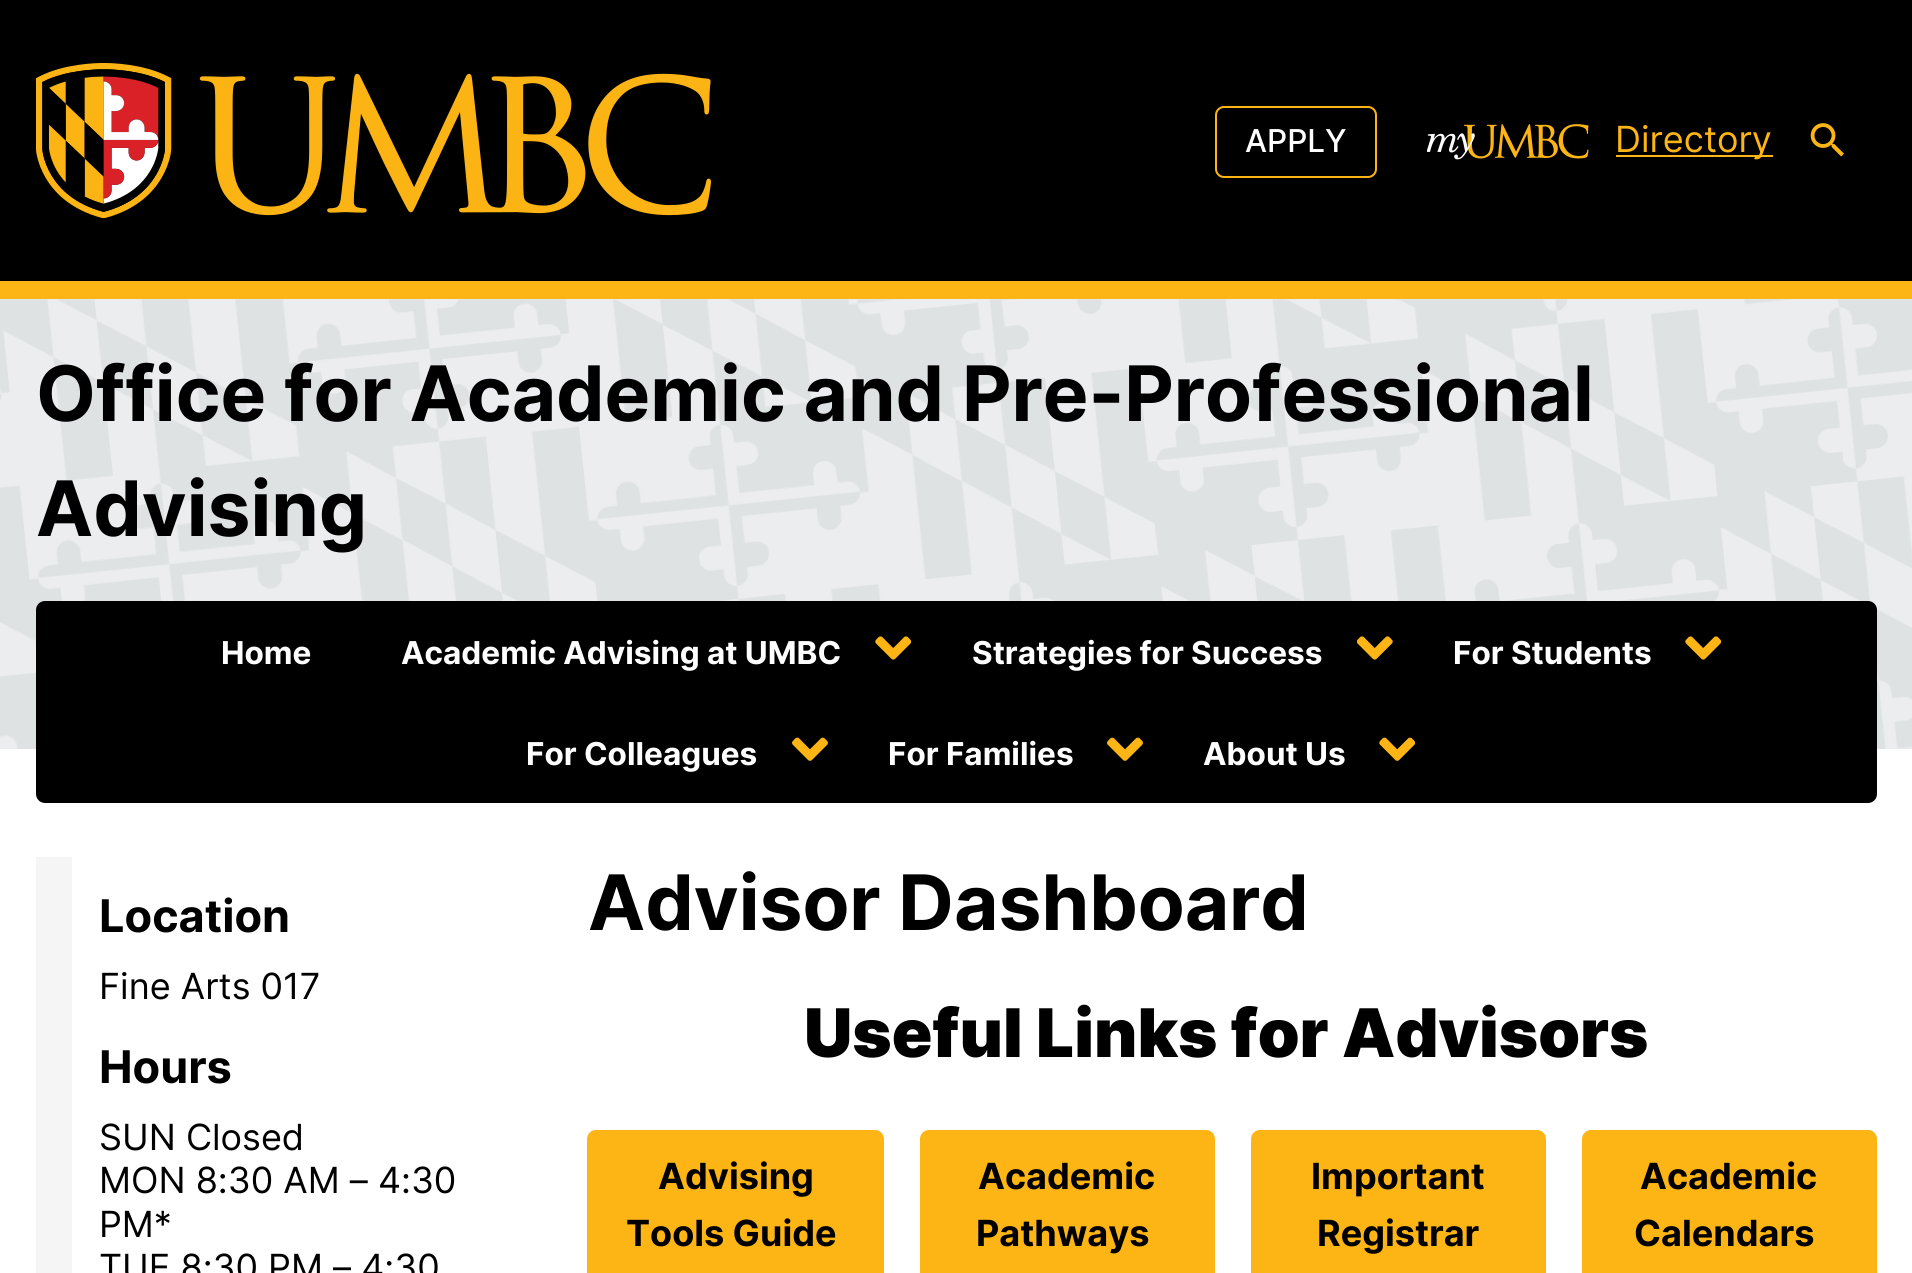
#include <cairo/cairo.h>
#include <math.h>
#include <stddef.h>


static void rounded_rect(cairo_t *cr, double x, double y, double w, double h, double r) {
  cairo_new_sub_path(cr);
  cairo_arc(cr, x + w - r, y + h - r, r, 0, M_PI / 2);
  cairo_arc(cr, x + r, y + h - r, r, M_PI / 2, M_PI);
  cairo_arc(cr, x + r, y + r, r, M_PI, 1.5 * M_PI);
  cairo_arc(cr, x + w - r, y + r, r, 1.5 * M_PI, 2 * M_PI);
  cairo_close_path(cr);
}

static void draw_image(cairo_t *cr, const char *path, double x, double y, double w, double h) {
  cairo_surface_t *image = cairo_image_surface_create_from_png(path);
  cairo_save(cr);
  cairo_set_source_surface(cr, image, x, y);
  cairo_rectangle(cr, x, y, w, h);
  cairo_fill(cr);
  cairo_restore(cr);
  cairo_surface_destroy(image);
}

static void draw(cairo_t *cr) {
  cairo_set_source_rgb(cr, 1, 1, 1);
  cairo_paint(cr);
  cairo_set_source_rgb(cr, 0, 0, 0);
  cairo_rectangle(cr, 0, 0, 1912, 281);
  cairo_fill(cr);
  cairo_set_source_rgb(cr, 253 / 255.0, 181 / 255.0, 21 / 255.0);
  cairo_rectangle(cr, 0, 281, 1912, 18);
  cairo_fill(cr);
  draw_image(cr, "images/1.png", 36, 63, 675, 155);
  rounded_rect(cr, 1216, 107, 160, 70, 8);
  cairo_stroke(cr);
  draw_image(cr, "images/2.png", 1427, 124, 162, 36);
  cairo_rectangle(cr, 1616, 155, 157, 2);
  cairo_fill(cr);
  draw_image(cr, "images/3.png", 1810, 123, 34, 34);
  cairo_set_source_rgb(cr, 235 / 255.0, 237 / 255.0, 238 / 255.0);
  cairo_rectangle(cr, 0, 299, 1912, 450);
  cairo_fill(cr);
  draw_image(cr, "images/4.png", 0, 299, 1912, 450);
  cairo_set_source_rgb(cr, 0, 0, 0);
  rounded_rect(cr, 36, 601, 1841, 202, 9);
  cairo_fill(cr);
  draw_image(cr, "images/5.png", 875, 636, 36, 24);
  draw_image(cr, "images/6.png", 1357, 636, 36, 24);
  draw_image(cr, "images/5.png", 1685, 636, 36, 24);
  draw_image(cr, "images/7.png", 792, 737, 36, 24);
  draw_image(cr, "images/7.png", 1107, 737, 36, 24);
  draw_image(cr, "images/8.png", 1379, 737, 36, 24);
  cairo_set_source_rgb(cr, 244 / 255.0, 245 / 255.0, 244 / 255.0);
  cairo_rectangle(cr, 36, 857, 36, 416);
  cairo_fill(cr);
  cairo_set_source_rgb(cr, 253 / 255.0, 181 / 255.0, 21 / 255.0);
  rounded_rect(cr, 587, 1130, 297, 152, 9);
  cairo_fill(cr);
  rounded_rect(cr, 920, 1130, 295, 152, 9);
  cairo_fill(cr);
  rounded_rect(cr, 1251, 1130, 295, 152, 9);
  cairo_fill(cr);
  rounded_rect(cr, 1582, 1130, 295, 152, 9);
  cairo_fill(cr);
  cairo_select_font_face(cr, "Inter Medium", CAIRO_FONT_SLANT_NORMAL, CAIRO_FONT_WEIGHT_NORMAL);
  cairo_set_font_size(cr, 31.5);
  cairo_set_source_rgb(cr, 1, 1, 1);
  cairo_move_to(cr, 1245, 152);
  cairo_show_text(cr, "APPLY");
  cairo_select_font_face(cr, "Inter", CAIRO_FONT_SLANT_NORMAL, CAIRO_FONT_WEIGHT_NORMAL);
  cairo_set_font_size(cr, 36);
  cairo_set_source_rgb(cr, 253 / 255.0, 181 / 255.0, 21 / 255.0);
  cairo_move_to(cr, 1615, 152);
  cairo_show_text(cr, "Directory");
  cairo_select_font_face(cr, "Inter", CAIRO_FONT_SLANT_NORMAL, CAIRO_FONT_WEIGHT_BOLD);
  cairo_set_font_size(cr, 76.5);
  cairo_set_source_rgb(cr, 0, 0, 0);
  cairo_move_to(cr, 36, 421);
  cairo_show_text(cr, "Office for Academic and Pre-Professional");
  cairo_move_to(cr, 36, 536);
  cairo_show_text(cr, "Advising");
  cairo_set_font_size(cr, 31.5);
  cairo_set_source_rgb(cr, 1, 1, 1);
  cairo_move_to(cr, 221, 664);
  cairo_show_text(cr, "Home");
  cairo_move_to(cr, 401, 664);
  cairo_show_text(cr, "Academic Advising at UMBC");
  cairo_move_to(cr, 972, 664);
  cairo_show_text(cr, "Strategies for Success");
  cairo_move_to(cr, 1453, 664);
  cairo_show_text(cr, "For Students");
  cairo_move_to(cr, 526, 765);
  cairo_show_text(cr, "For Colleagues");
  cairo_move_to(cr, 888, 765);
  cairo_show_text(cr, "For Families");
  cairo_move_to(cr, 1203, 765);
  cairo_show_text(cr, "About Us");
  cairo_set_font_size(cr, 45);
  cairo_set_source_rgb(cr, 0, 0, 0);
  cairo_move_to(cr, 99, 932);
  cairo_show_text(cr, "Location");
  cairo_select_font_face(cr, "Inter", CAIRO_FONT_SLANT_NORMAL, CAIRO_FONT_WEIGHT_NORMAL);
  cairo_set_font_size(cr, 36);
  cairo_move_to(cr, 99, 999);
  cairo_show_text(cr, "Fine Arts 017");
  cairo_select_font_face(cr, "Inter", CAIRO_FONT_SLANT_NORMAL, CAIRO_FONT_WEIGHT_BOLD);
  cairo_set_font_size(cr, 45);
  cairo_move_to(cr, 99, 1083);
  cairo_show_text(cr, "Hours");
  cairo_select_font_face(cr, "Inter", CAIRO_FONT_SLANT_NORMAL, CAIRO_FONT_WEIGHT_NORMAL);
  cairo_set_font_size(cr, 36);
  cairo_move_to(cr, 99, 1150);
  cairo_show_text(cr, "SUN Closed");
  cairo_move_to(cr, 99, 1193);
  cairo_show_text(cr, "MON 8:30 AM – 4:30");
  cairo_move_to(cr, 99, 1237);
  cairo_show_text(cr, "PM*");
  cairo_move_to(cr, 99, 1280);
  cairo_show_text(cr, "TUE 8:30 PM – 4:30");
  cairo_select_font_face(cr, "Inter", CAIRO_FONT_SLANT_NORMAL, CAIRO_FONT_WEIGHT_BOLD);
  cairo_set_font_size(cr, 76.5);
  cairo_move_to(cr, 588, 930);
  cairo_show_text(cr, "Advisor Dashboard");
  cairo_select_font_face(cr, "Inter Black", CAIRO_FONT_SLANT_NORMAL, CAIRO_FONT_WEIGHT_NORMAL);
  cairo_set_font_size(cr, 67);
  cairo_move_to(cr, 804, 1057);
  cairo_show_text(cr, "Useful Links for Advisors");
  cairo_select_font_face(cr, "Inter", CAIRO_FONT_SLANT_NORMAL, CAIRO_FONT_WEIGHT_BOLD);
  cairo_set_font_size(cr, 36);
  cairo_move_to(cr, 658, 1189);
  cairo_show_text(cr, "Advising");
  cairo_move_to(cr, 626, 1246);
  cairo_show_text(cr, "Tools Guide");
  cairo_move_to(cr, 978, 1189);
  cairo_show_text(cr, "Academic");
  cairo_move_to(cr, 976, 1246);
  cairo_show_text(cr, "Pathways");
  cairo_move_to(cr, 1311, 1189);
  cairo_show_text(cr, "Important");
  cairo_move_to(cr, 1317, 1246);
  cairo_show_text(cr, "Registrar");
  cairo_move_to(cr, 1640, 1189);
  cairo_show_text(cr, "Academic");
  cairo_move_to(cr, 1634, 1246);
  cairo_show_text(cr, "Calendars");
}

int main(void) {
  cairo_surface_t *surface = cairo_image_surface_create(CAIRO_FORMAT_RGB24, 1912, 1273);
  cairo_t *cr = cairo_create(surface);
  cairo_font_options_t *options = cairo_font_options_create();
  cairo_font_options_set_hint_metrics(options, CAIRO_HINT_METRICS_OFF);
  cairo_font_options_set_hint_style(options, CAIRO_HINT_STYLE_NONE);
  cairo_set_font_options(cr, options);
  cairo_set_miter_limit(cr, 4);
  draw(cr);
  cairo_surface_write_to_png(surface, "out.png");
  cairo_font_options_destroy(options);
  cairo_destroy(cr);
  cairo_surface_destroy(surface);
  return 0;
}
